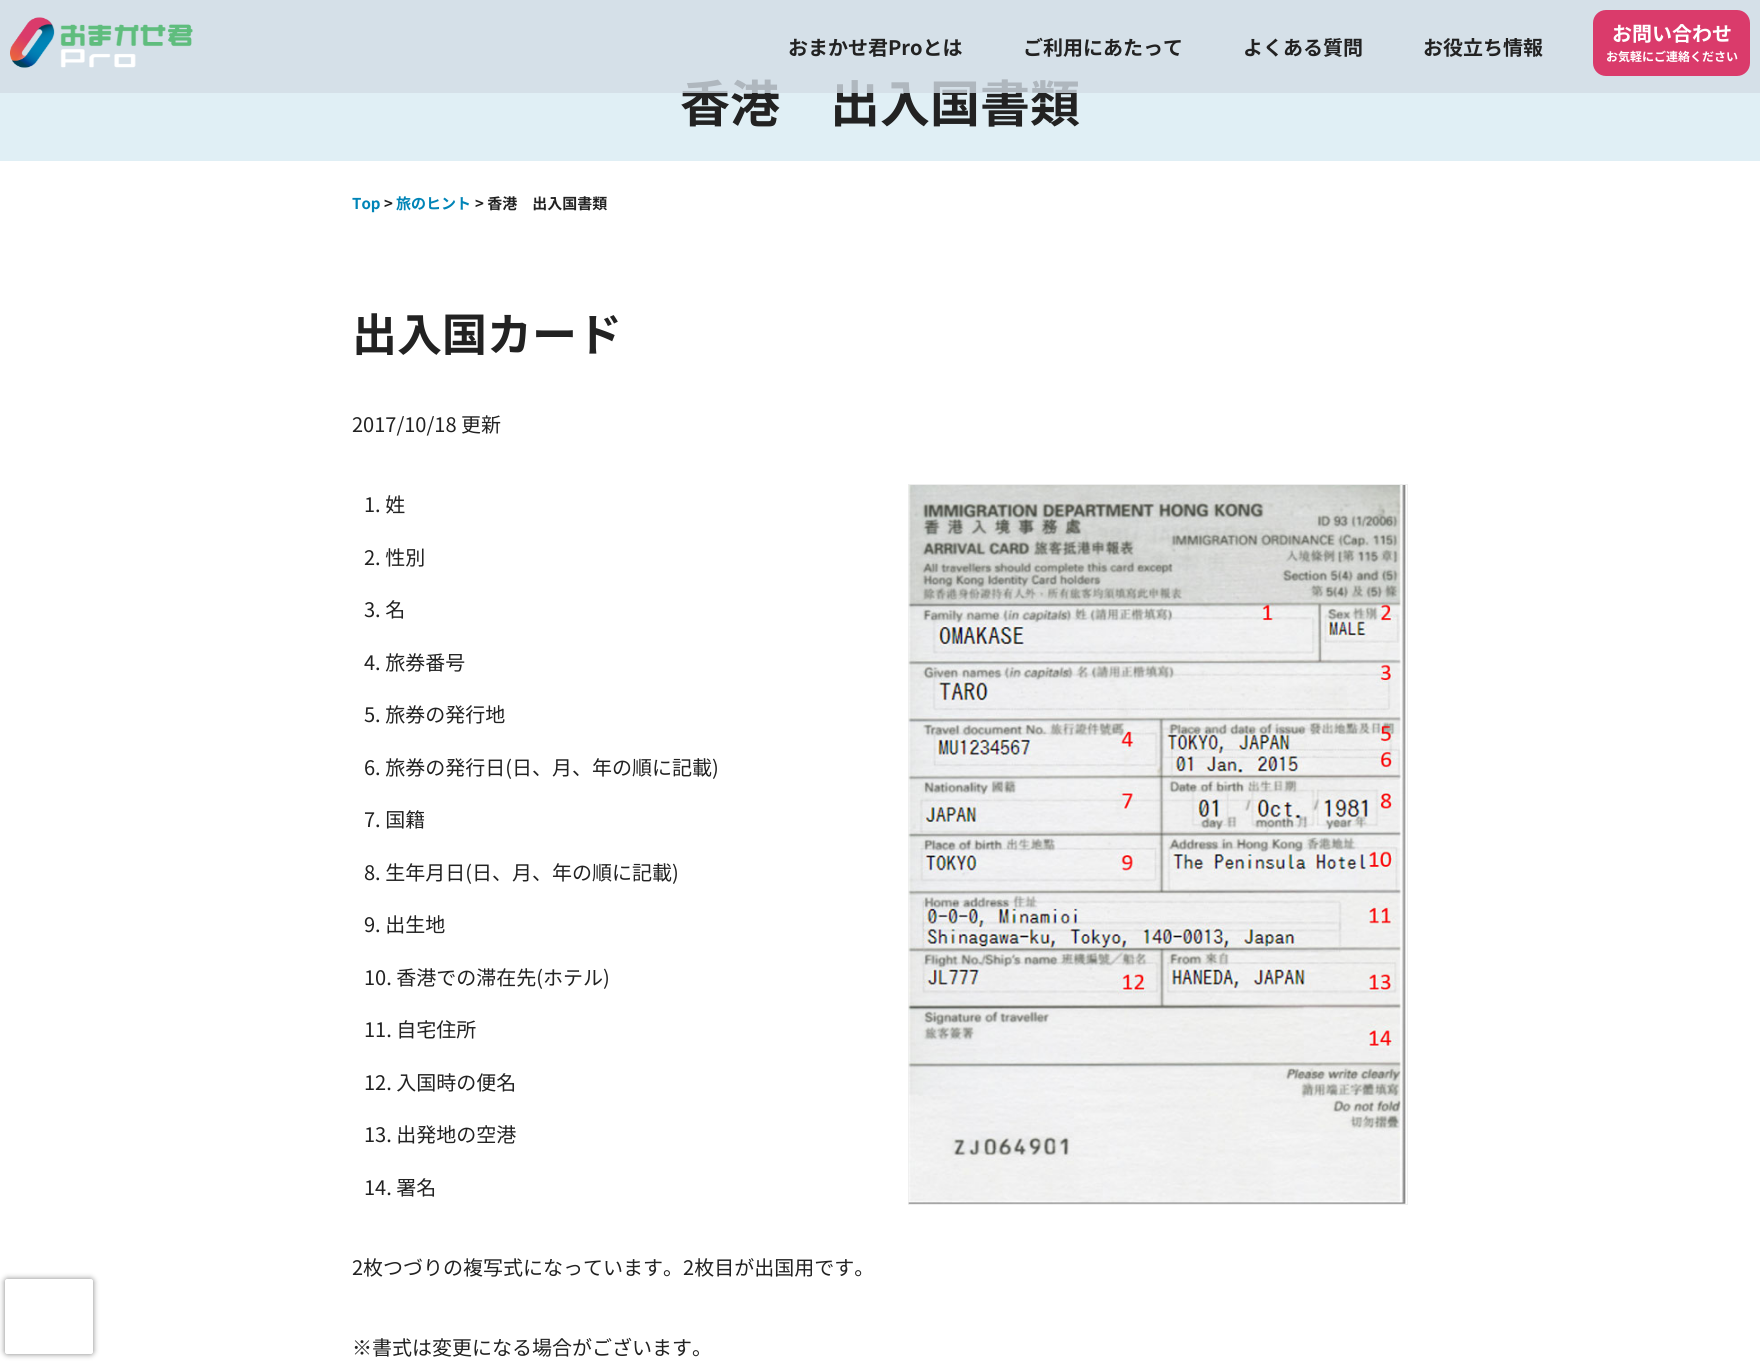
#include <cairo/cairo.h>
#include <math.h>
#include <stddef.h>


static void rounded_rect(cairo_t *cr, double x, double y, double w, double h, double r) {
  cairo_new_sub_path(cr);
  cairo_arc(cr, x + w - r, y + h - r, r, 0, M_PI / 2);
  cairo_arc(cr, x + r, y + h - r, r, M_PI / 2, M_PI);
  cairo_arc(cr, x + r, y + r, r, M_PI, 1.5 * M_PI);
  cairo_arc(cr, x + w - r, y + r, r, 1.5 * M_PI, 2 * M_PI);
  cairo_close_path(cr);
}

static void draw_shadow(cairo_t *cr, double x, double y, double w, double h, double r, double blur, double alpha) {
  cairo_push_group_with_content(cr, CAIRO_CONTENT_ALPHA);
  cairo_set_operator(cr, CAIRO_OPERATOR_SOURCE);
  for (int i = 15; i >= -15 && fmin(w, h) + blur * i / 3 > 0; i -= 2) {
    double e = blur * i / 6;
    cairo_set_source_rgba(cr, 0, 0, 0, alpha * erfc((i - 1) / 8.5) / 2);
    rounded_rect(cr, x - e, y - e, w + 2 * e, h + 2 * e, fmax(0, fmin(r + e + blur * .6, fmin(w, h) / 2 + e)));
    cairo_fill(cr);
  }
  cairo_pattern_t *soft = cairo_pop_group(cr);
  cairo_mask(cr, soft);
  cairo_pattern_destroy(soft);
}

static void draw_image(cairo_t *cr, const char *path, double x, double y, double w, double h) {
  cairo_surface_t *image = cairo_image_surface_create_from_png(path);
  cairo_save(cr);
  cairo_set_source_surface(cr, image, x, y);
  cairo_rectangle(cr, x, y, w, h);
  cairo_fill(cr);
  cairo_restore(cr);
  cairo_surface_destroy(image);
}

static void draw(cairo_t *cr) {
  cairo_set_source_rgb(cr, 1, 1, 1);
  cairo_paint(cr);
  cairo_set_source_rgb(cr, 224 / 255.0, 239 / 255.0, 245 / 255.0);
  cairo_rectangle(cr, 0, 0, 1760, 161);
  cairo_fill(cr);
  cairo_save(cr);
  cairo_set_fill_rule(cr, CAIRO_FILL_RULE_EVEN_ODD);
  cairo_new_path(cr);
  cairo_move_to(cr, 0, 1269);
  cairo_line_to(cr, 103, 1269);
  cairo_line_to(cr, 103, 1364);
  cairo_line_to(cr, 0, 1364);
  cairo_close_path(cr);
  cairo_move_to(cr, 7.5, 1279);
  cairo_line_to(cr, 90.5, 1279);
  cairo_curve_to(cr, 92, 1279, 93, 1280, 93, 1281.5);
  cairo_line_to(cr, 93, 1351.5);
  cairo_curve_to(cr, 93, 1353, 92, 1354, 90.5, 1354);
  cairo_line_to(cr, 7.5, 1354);
  cairo_curve_to(cr, 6, 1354, 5, 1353, 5, 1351.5);
  cairo_line_to(cr, 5, 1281.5);
  cairo_curve_to(cr, 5, 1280, 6, 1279, 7.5, 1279);
  cairo_close_path(cr);
  cairo_clip(cr);
  cairo_set_source_rgb(cr, 128 / 255.0, 128 / 255.0, 128 / 255.0);
  draw_shadow(cr, 5, 1279, 88, 75, 2.5, 3, 1);
  cairo_restore(cr);
  cairo_rectangle(cr, 908.5, 484.5, 499, 720);
  cairo_set_source_rgb(cr, 238 / 255.0, 238 / 255.0, 238 / 255.0);
  cairo_set_line_width(cr, 1);
  cairo_stroke(cr);
  draw_image(cr, "images/2.png", 908, 485, 498, 719);
  cairo_select_font_face(cr, "Noto Sans JP", CAIRO_FONT_SLANT_NORMAL, CAIRO_FONT_WEIGHT_BOLD);
  cairo_set_font_size(cr, 50);
  cairo_set_source_rgb(cr, 34 / 255.0, 34 / 255.0, 34 / 255.0);
  cairo_move_to(cr, 680, 122);
  cairo_show_text(cr, "香港　出入国書類");
  cairo_set_source_rgba(cr, 210 / 255.0, 220 / 255.0, 228 / 255.0, 0.8);
  cairo_rectangle(cr, 0, 0, 1760, 93);
  cairo_fill(cr);
  cairo_set_source_rgb(cr, 218 / 255.0, 59 / 255.0, 107 / 255.0);
  rounded_rect(cr, 1594.5, 11.5, 154, 63, 11.5);
  cairo_fill_preserve(cr);
  cairo_set_line_width(cr, 3);
  cairo_stroke(cr);
  cairo_set_font_size(cr, 12);
  cairo_set_source_rgb(cr, 1, 1, 1);
  cairo_move_to(cr, 1606, 61);
  cairo_show_text(cr, "お気軽にご連絡ください");
  cairo_set_font_size(cr, 20);
  cairo_move_to(cr, 1612, 41);
  cairo_show_text(cr, "お問い合わせ");
  cairo_set_source_rgb(cr, 34 / 255.0, 34 / 255.0, 34 / 255.0);
  cairo_move_to(cr, 1423, 55);
  cairo_show_text(cr, "お役立ち情報");
  cairo_move_to(cr, 1243, 55);
  cairo_show_text(cr, "よくある質問");
  cairo_move_to(cr, 1023, 55);
  cairo_show_text(cr, "ご利用にあたって");
  cairo_move_to(cr, 788, 55);
  cairo_show_text(cr, "おまかせ君Proとは");
  draw_image(cr, "images/1.png", 10, 17, 183, 51);
  cairo_set_font_size(cr, 15);
  cairo_set_source_rgb(cr, 0, 132 / 255.0, 183 / 255.0);
  cairo_move_to(cr, 352, 209);
  cairo_show_text(cr, "Top");
  cairo_set_source_rgb(cr, 34 / 255.0, 34 / 255.0, 34 / 255.0);
  cairo_move_to(cr, 384, 209);
  cairo_show_text(cr, ">");
  cairo_set_source_rgb(cr, 0, 132 / 255.0, 183 / 255.0);
  cairo_move_to(cr, 396, 209);
  cairo_show_text(cr, "旅のヒント");
  cairo_set_source_rgb(cr, 34 / 255.0, 34 / 255.0, 34 / 255.0);
  cairo_move_to(cr, 475, 209);
  cairo_show_text(cr, "> 香港　出入国書類");
  cairo_set_font_size(cr, 45);
  cairo_move_to(cr, 352, 351);
  cairo_show_text(cr, "出入国カード");
  cairo_select_font_face(cr, "Noto Sans JP", CAIRO_FONT_SLANT_NORMAL, CAIRO_FONT_WEIGHT_NORMAL);
  cairo_set_font_size(cr, 20);
  cairo_move_to(cr, 352, 432);
  cairo_show_text(cr, "2017/10/18 更新");
  cairo_move_to(cr, 364, 512);
  cairo_show_text(cr, "1. 姓");
  cairo_move_to(cr, 364, 565);
  cairo_show_text(cr, "2. 性別");
  cairo_move_to(cr, 364, 617);
  cairo_show_text(cr, "3. 名");
  cairo_move_to(cr, 364, 670);
  cairo_show_text(cr, "4. 旅券番号");
  cairo_move_to(cr, 364, 722);
  cairo_show_text(cr, "5. 旅券の発行地");
  cairo_move_to(cr, 364, 775);
  cairo_show_text(cr, "6. 旅券の発行日(日、月、年の順に記載)");
  cairo_move_to(cr, 364, 827);
  cairo_show_text(cr, "7. 国籍");
  cairo_move_to(cr, 364, 880);
  cairo_show_text(cr, "8. 生年月日(日、月、年の順に記載)");
  cairo_move_to(cr, 364, 932);
  cairo_show_text(cr, "9. 出生地");
  cairo_move_to(cr, 364, 985);
  cairo_show_text(cr, "10. 香港での滞在先(ホテル)");
  cairo_move_to(cr, 364, 1037);
  cairo_show_text(cr, "11. 自宅住所");
  cairo_move_to(cr, 364, 1090);
  cairo_show_text(cr, "12. 入国時の便名");
  cairo_move_to(cr, 364, 1142);
  cairo_show_text(cr, "13. 出発地の空港");
  cairo_move_to(cr, 364, 1195);
  cairo_show_text(cr, "14. 署名");
  cairo_move_to(cr, 352, 1275);
  cairo_show_text(cr, "2枚つづりの複写式になっています。2枚目が出国用です。");
  cairo_move_to(cr, 352, 1355);
  cairo_show_text(cr, "※書式は変更になる場合がございます。");
}

int main(void) {
  cairo_surface_t *surface = cairo_image_surface_create(CAIRO_FORMAT_RGB24, 1760, 1371);
  cairo_t *cr = cairo_create(surface);
  cairo_font_options_t *options = cairo_font_options_create();
  cairo_font_options_set_hint_metrics(options, CAIRO_HINT_METRICS_OFF);
  cairo_font_options_set_hint_style(options, CAIRO_HINT_STYLE_NONE);
  cairo_set_font_options(cr, options);
  cairo_set_miter_limit(cr, 4);
  draw(cr);
  cairo_surface_write_to_png(surface, "out.png");
  cairo_font_options_destroy(options);
  cairo_destroy(cr);
  cairo_surface_destroy(surface);
  return 0;
}
